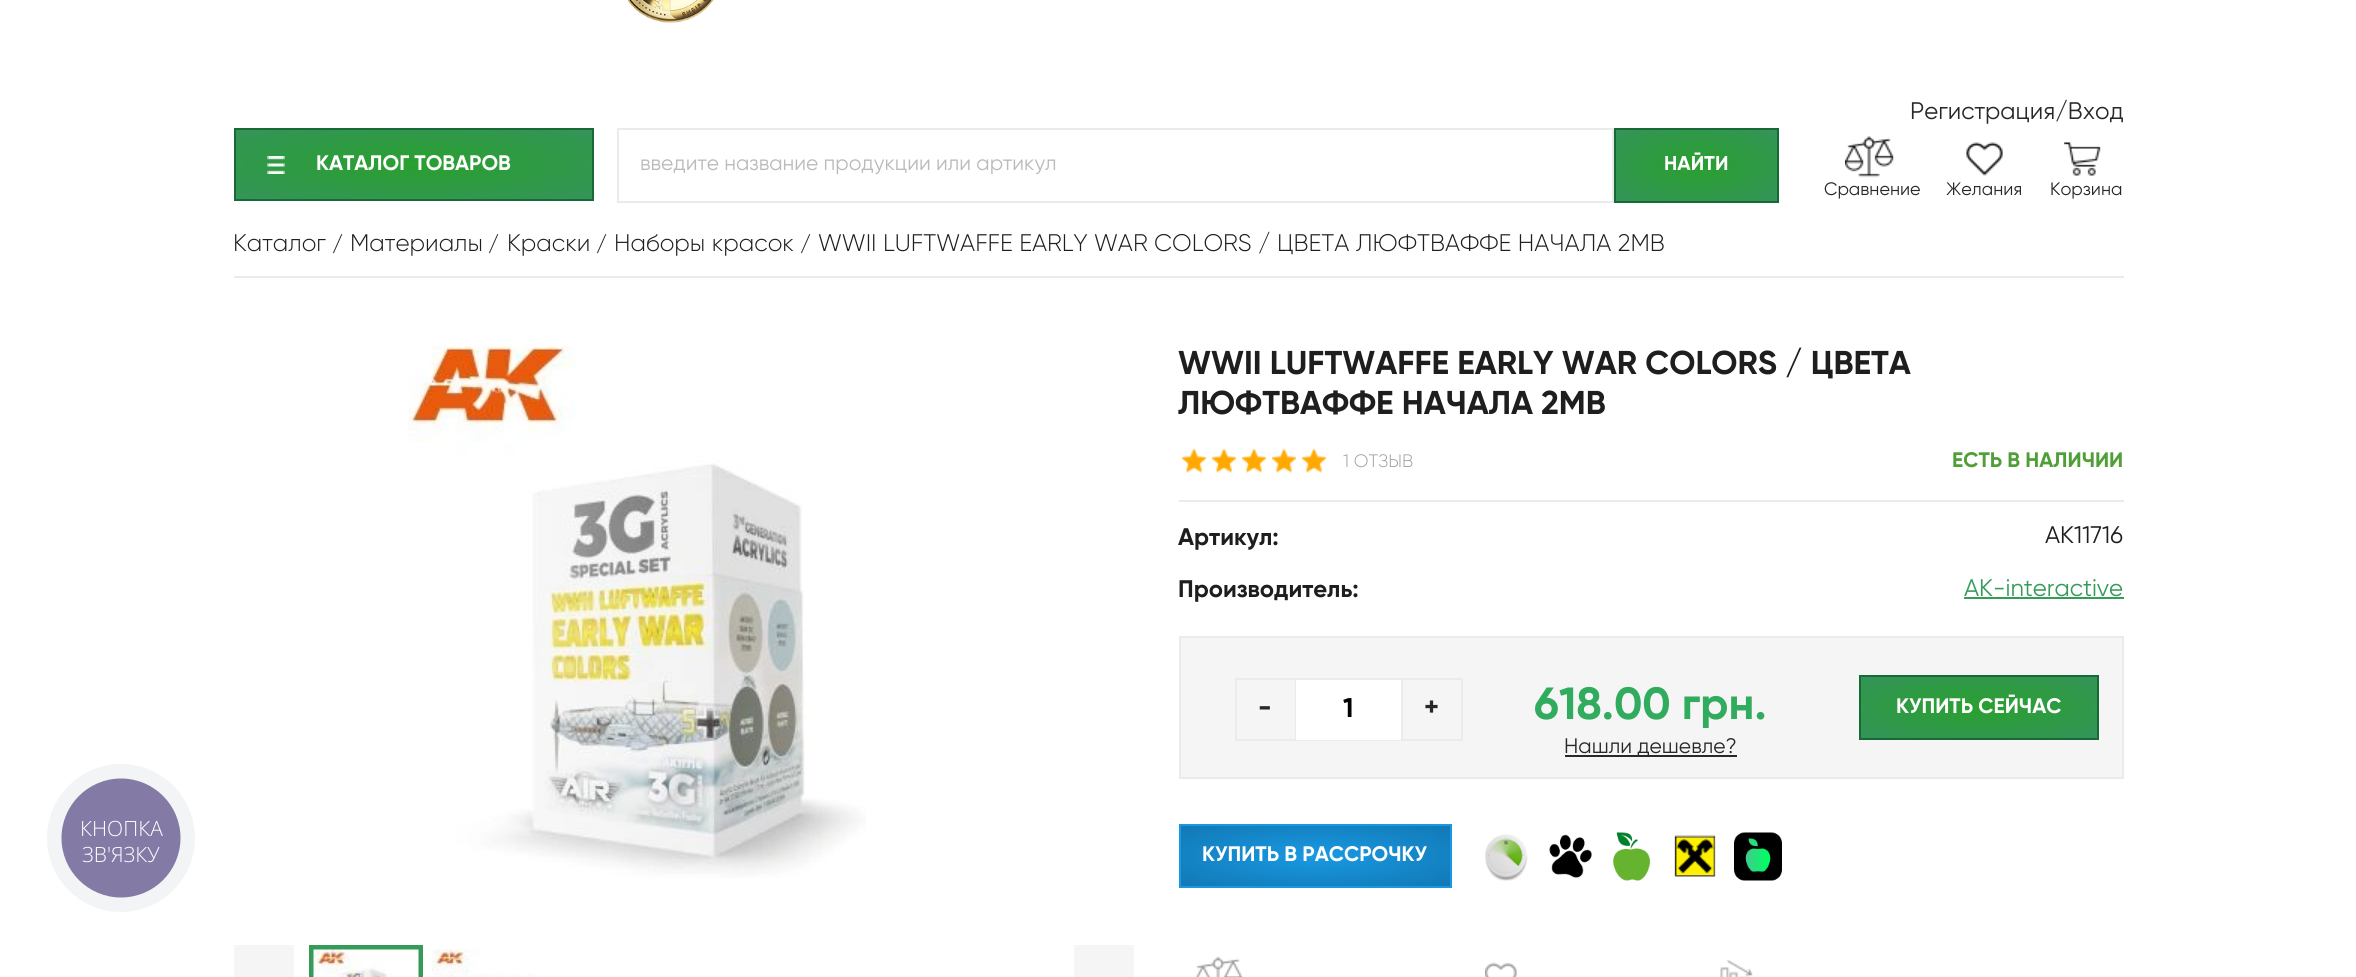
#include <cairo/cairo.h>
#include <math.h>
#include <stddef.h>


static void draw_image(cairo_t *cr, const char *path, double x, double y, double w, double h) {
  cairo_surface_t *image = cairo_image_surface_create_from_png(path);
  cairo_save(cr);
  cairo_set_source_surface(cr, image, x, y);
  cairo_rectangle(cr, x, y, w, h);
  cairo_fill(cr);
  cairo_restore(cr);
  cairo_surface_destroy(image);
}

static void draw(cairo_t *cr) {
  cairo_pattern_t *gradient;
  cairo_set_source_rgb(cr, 1, 1, 1);
  cairo_paint(cr);
  cairo_set_source_rgb(cr, 242 / 255.0, 244 / 255.0, 245 / 255.0);
  cairo_arc(cr, 121, 838, 74, 0, 2 * M_PI);
  cairo_fill(cr);
  cairo_set_source_rgb(cr, 131 / 255.0, 123 / 255.0, 166 / 255.0);
  cairo_arc(cr, 121, 838, 59.5, 0, 2 * M_PI);
  cairo_fill(cr);
  draw_image(cr, "images/1.png", 627, 0, 87, 23);
  gradient = cairo_pattern_create_radial(0, 0, 0, 0, 0, 1);
  cairo_pattern_set_matrix(gradient, &(cairo_matrix_t){1.0 / 252, 0, 0, 1.0 / 50, -1.0 * 414 / 252, -1.0 * 164 / 50});
  cairo_pattern_add_color_stop_rgba(gradient, 0, 41 / 255.0, 160 / 255.0, 46 / 255.0, 1);
  cairo_pattern_add_color_stop_rgba(gradient, 1, 52 / 255.0, 148 / 255.0, 90 / 255.0, 1);
  cairo_set_source(cr, gradient);
  cairo_pattern_destroy(gradient);
  cairo_rectangle(cr, 236, 130, 356, 69);
  cairo_fill(cr);
  cairo_rectangle(cr, 235, 129, 358, 71);
  cairo_set_source_rgb(cr, 24 / 255.0, 105 / 255.0, 53 / 255.0);
  cairo_stroke(cr);
  draw_image(cr, "images/2.png", 267, 156, 18, 18);
  cairo_rectangle(cr, 618, 129, 995, 73);
  cairo_set_source_rgb(cr, 235 / 255.0, 235 / 255.0, 235 / 255.0);
  cairo_stroke(cr);
  gradient = cairo_pattern_create_radial(0, 0, 0, 0, 0, 1);
  cairo_pattern_set_matrix(gradient, &(cairo_matrix_t){1.0 / 115, 0, 0, 1.0 / 51, -1.0 * 1697 / 115, -1.0 * 165 / 51});
  cairo_pattern_add_color_stop_rgba(gradient, 0, 41 / 255.0, 160 / 255.0, 46 / 255.0, 1);
  cairo_pattern_add_color_stop_rgba(gradient, 1, 52 / 255.0, 148 / 255.0, 90 / 255.0, 1);
  cairo_set_source(cr, gradient);
  cairo_pattern_destroy(gradient);
  cairo_rectangle(cr, 1616, 130, 161, 71);
  cairo_fill(cr);
  cairo_rectangle(cr, 1615, 129, 163, 73);
  cairo_set_source_rgb(cr, 24 / 255.0, 105 / 255.0, 53 / 255.0);
  cairo_stroke(cr);
  draw_image(cr, "images/3.png", 1845, 136, 49, 42);
  draw_image(cr, "images/4.png", 1966, 142, 37, 34);
  draw_image(cr, "images/5.png", 2064, 142, 37, 34);
  cairo_set_source_rgb(cr, 235 / 255.0, 235 / 255.0, 235 / 255.0);
  cairo_rectangle(cr, 234, 276, 1890, 2);
  cairo_fill(cr);
  draw_image(cr, "images/6.png", 407, 344, 459, 534);
  cairo_set_source_rgb(cr, 245 / 255.0, 245 / 255.0, 245 / 255.0);
  cairo_rectangle(cr, 234, 945, 60, 32);
  cairo_fill(cr);
  cairo_rectangle(cr, 311.5, 947.5, 109, 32);
  cairo_set_source_rgb(cr, 53 / 255.0, 155 / 255.0, 89 / 255.0);
  cairo_set_line_width(cr, 5);
  cairo_stroke(cr);
  draw_image(cr, "images/7.png", 313, 949, 106, 28);
  draw_image(cr, "images/8.png", 432, 949, 105, 28);
  cairo_set_source_rgb(cr, 245 / 255.0, 245 / 255.0, 245 / 255.0);
  cairo_rectangle(cr, 1074, 945, 60, 32);
  cairo_fill(cr);
  cairo_set_source_rgb(cr, 235 / 255.0, 235 / 255.0, 235 / 255.0);
  cairo_rectangle(cr, 1179, 500, 945, 2);
  cairo_fill(cr);
  draw_image(cr, "images/9.png", 1182, 448, 24, 25);
  draw_image(cr, "images/9.png", 1212, 448, 24, 25);
  draw_image(cr, "images/9.png", 1242, 448, 24, 25);
  draw_image(cr, "images/10.png", 1272, 448, 24, 25);
  draw_image(cr, "images/10.png", 1302, 448, 24, 25);
  cairo_set_source_rgb(cr, 53 / 255.0, 155 / 255.0, 89 / 255.0);
  cairo_rectangle(cr, 1964, 597, 160, 2);
  cairo_fill(cr);
  cairo_set_source_rgb(cr, 245 / 255.0, 245 / 255.0, 245 / 255.0);
  cairo_rectangle(cr, 1180, 637, 943, 141);
  cairo_fill_preserve(cr);
  cairo_set_source_rgb(cr, 235 / 255.0, 235 / 255.0, 235 / 255.0);
  cairo_set_line_width(cr, 2);
  cairo_stroke(cr);
  cairo_rectangle(cr, 1236, 679, 226, 61);
  cairo_stroke(cr);
  cairo_rectangle(cr, 1295, 680, 1, 60);
  cairo_fill(cr);
  cairo_set_source_rgb(cr, 1, 1, 1);
  cairo_rectangle(cr, 1296, 680, 105, 60);
  cairo_fill(cr);
  cairo_set_source_rgb(cr, 235 / 255.0, 235 / 255.0, 235 / 255.0);
  cairo_rectangle(cr, 1401, 680, 2, 60);
  cairo_fill(cr);
  cairo_set_source_rgb(cr, 40 / 255.0, 40 / 255.0, 40 / 255.0);
  cairo_rectangle(cr, 1565, 755, 172, 2);
  cairo_fill(cr);
  gradient = cairo_pattern_create_radial(0, 0, 0, 0, 0, 1);
  cairo_pattern_set_matrix(gradient, &(cairo_matrix_t){1.0 / 168, 0, 0, 1.0 / 43, -1.0 * 1979 / 168, -1.0 * 707 / 43});
  cairo_pattern_add_color_stop_rgba(gradient, 0, 41 / 255.0, 160 / 255.0, 46 / 255.0, 1);
  cairo_pattern_add_color_stop_rgba(gradient, 1, 52 / 255.0, 148 / 255.0, 90 / 255.0, 1);
  cairo_set_source(cr, gradient);
  cairo_pattern_destroy(gradient);
  cairo_rectangle(cr, 1861, 677, 236, 61);
  cairo_fill(cr);
  cairo_rectangle(cr, 1860, 676, 238, 63);
  cairo_set_source_rgb(cr, 24 / 255.0, 105 / 255.0, 53 / 255.0);
  cairo_stroke(cr);
  gradient = cairo_pattern_create_radial(0, 0, 0, 0, 0, 1);
  cairo_pattern_set_matrix(gradient, &(cairo_matrix_t){1.0 / 191, 0, 0, 1.0 / 43, -1.0 * 1316 / 191, -1.0 * 856 / 43});
  cairo_pattern_add_color_stop_rgba(gradient, 0, 24 / 255.0, 153 / 255.0, 227 / 255.0, 1);
  cairo_pattern_add_color_stop_rgba(gradient, 1, 18 / 255.0, 120 / 255.0, 180 / 255.0, 1);
  cairo_set_source(cr, gradient);
  cairo_pattern_destroy(gradient);
  cairo_rectangle(cr, 1181, 826, 269, 60);
  cairo_fill(cr);
  cairo_rectangle(cr, 1180, 825, 271, 62);
  cairo_set_source_rgb(cr, 24 / 255.0, 153 / 255.0, 227 / 255.0);
  cairo_stroke(cr);
  draw_image(cr, "images/11.png", 1485, 834, 43, 47);
  draw_image(cr, "images/12.png", 1549, 834, 43, 44);
  draw_image(cr, "images/13.png", 1613, 832, 37, 49);
  draw_image(cr, "images/14.png", 1674, 835, 42, 42);
  draw_image(cr, "images/15.png", 1734, 832, 48, 49);
  draw_image(cr, "images/16.png", 1195, 956, 48, 21);
  draw_image(cr, "images/17.png", 1485, 962, 32, 15);
  draw_image(cr, "images/18.png", 1720, 959, 33, 18);
  cairo_select_font_face(cr, "Open Sans Light", CAIRO_FONT_SLANT_NORMAL, CAIRO_FONT_WEIGHT_NORMAL);
  cairo_set_font_size(cr, 21);
  cairo_set_source_rgb(cr, 1, 1, 1);
  cairo_move_to(cr, 80, 836);
  cairo_show_text(cr, "КНОПКА");
  cairo_move_to(cr, 82, 862);
  cairo_show_text(cr, "ЗВ'ЯЗКУ");
  cairo_select_font_face(cr, "Gilroy", CAIRO_FONT_SLANT_NORMAL, CAIRO_FONT_WEIGHT_NORMAL);
  cairo_set_font_size(cr, 24);
  cairo_set_source_rgb(cr, 40 / 255.0, 40 / 255.0, 40 / 255.0);
  cairo_move_to(cr, 1910, 119);
  cairo_show_text(cr, "Регистрация/Вход");
  cairo_select_font_face(cr, "Gilroy", CAIRO_FONT_SLANT_NORMAL, CAIRO_FONT_WEIGHT_BOLD);
  cairo_set_font_size(cr, 21);
  cairo_set_source_rgb(cr, 1, 1, 1);
  cairo_move_to(cr, 316, 170);
  cairo_show_text(cr, "КАТАЛОГ ТОВАРОВ");
  cairo_select_font_face(cr, "Gilroy", CAIRO_FONT_SLANT_NORMAL, CAIRO_FONT_WEIGHT_NORMAL);
  cairo_set_source_rgb(cr, 186 / 255.0, 186 / 255.0, 186 / 255.0);
  cairo_move_to(cr, 640, 170);
  cairo_show_text(cr, "введите название продукции или артикул");
  cairo_select_font_face(cr, "Gilroy", CAIRO_FONT_SLANT_NORMAL, CAIRO_FONT_WEIGHT_BOLD);
  cairo_set_font_size(cr, 20);
  cairo_set_source_rgb(cr, 1, 1, 1);
  cairo_move_to(cr, 1664, 170);
  cairo_show_text(cr, "НАЙТИ");
  cairo_select_font_face(cr, "Gilroy", CAIRO_FONT_SLANT_NORMAL, CAIRO_FONT_WEIGHT_NORMAL);
  cairo_set_font_size(cr, 18);
  cairo_set_source_rgb(cr, 40 / 255.0, 40 / 255.0, 40 / 255.0);
  cairo_move_to(cr, 1824, 195);
  cairo_show_text(cr, "Сравнение");
  cairo_move_to(cr, 1946, 195);
  cairo_show_text(cr, "Желания");
  cairo_move_to(cr, 2050, 195);
  cairo_show_text(cr, "Корзина");
  cairo_select_font_face(cr, "Gilroy Light", CAIRO_FONT_SLANT_NORMAL, CAIRO_FONT_WEIGHT_NORMAL);
  cairo_set_font_size(cr, 24);
  cairo_set_source_rgb(cr, 30 / 255.0, 30 / 255.0, 30 / 255.0);
  cairo_move_to(cr, 233, 251);
  cairo_show_text(cr, "Каталог");
  cairo_select_font_face(cr, "Gilroy", CAIRO_FONT_SLANT_NORMAL, CAIRO_FONT_WEIGHT_NORMAL);
  cairo_set_font_size(cr, 21);
  cairo_set_source_rgb(cr, 40 / 255.0, 40 / 255.0, 40 / 255.0);
  cairo_move_to(cr, 332, 251);
  cairo_show_text(cr, "/");
  cairo_select_font_face(cr, "Gilroy Light", CAIRO_FONT_SLANT_NORMAL, CAIRO_FONT_WEIGHT_NORMAL);
  cairo_set_font_size(cr, 24);
  cairo_set_source_rgb(cr, 30 / 255.0, 30 / 255.0, 30 / 255.0);
  cairo_move_to(cr, 350, 251);
  cairo_show_text(cr, "Материалы");
  cairo_select_font_face(cr, "Gilroy", CAIRO_FONT_SLANT_NORMAL, CAIRO_FONT_WEIGHT_NORMAL);
  cairo_set_font_size(cr, 21);
  cairo_set_source_rgb(cr, 40 / 255.0, 40 / 255.0, 40 / 255.0);
  cairo_move_to(cr, 488, 251);
  cairo_show_text(cr, "/");
  cairo_select_font_face(cr, "Gilroy Light", CAIRO_FONT_SLANT_NORMAL, CAIRO_FONT_WEIGHT_NORMAL);
  cairo_set_font_size(cr, 24);
  cairo_set_source_rgb(cr, 30 / 255.0, 30 / 255.0, 30 / 255.0);
  cairo_move_to(cr, 507, 251);
  cairo_show_text(cr, "Краски");
  cairo_select_font_face(cr, "Gilroy", CAIRO_FONT_SLANT_NORMAL, CAIRO_FONT_WEIGHT_NORMAL);
  cairo_set_font_size(cr, 21);
  cairo_set_source_rgb(cr, 40 / 255.0, 40 / 255.0, 40 / 255.0);
  cairo_move_to(cr, 596, 251);
  cairo_show_text(cr, "/");
  cairo_select_font_face(cr, "Gilroy Light", CAIRO_FONT_SLANT_NORMAL, CAIRO_FONT_WEIGHT_NORMAL);
  cairo_set_font_size(cr, 24);
  cairo_set_source_rgb(cr, 30 / 255.0, 30 / 255.0, 30 / 255.0);
  cairo_move_to(cr, 614, 251);
  cairo_show_text(cr, "Наборы красок");
  cairo_select_font_face(cr, "Gilroy", CAIRO_FONT_SLANT_NORMAL, CAIRO_FONT_WEIGHT_NORMAL);
  cairo_set_font_size(cr, 21);
  cairo_set_source_rgb(cr, 40 / 255.0, 40 / 255.0, 40 / 255.0);
  cairo_move_to(cr, 800, 251);
  cairo_show_text(cr, "/");
  cairo_select_font_face(cr, "Gilroy Light", CAIRO_FONT_SLANT_NORMAL, CAIRO_FONT_WEIGHT_NORMAL);
  cairo_set_font_size(cr, 24);
  cairo_set_source_rgb(cr, 30 / 255.0, 30 / 255.0, 30 / 255.0);
  cairo_move_to(cr, 818, 251);
  cairo_show_text(cr, "WWII LUFTWAFFE EARLY WAR COLORS / ЦВЕТА ЛЮФТВАФФЕ НАЧАЛА 2МВ");
  cairo_select_font_face(cr, "Gilroy", CAIRO_FONT_SLANT_NORMAL, CAIRO_FONT_WEIGHT_BOLD);
  cairo_set_font_size(cr, 33);
  cairo_move_to(cr, 1178, 374);
  cairo_show_text(cr, "WWII LUFTWAFFE EARLY WAR COLORS / ЦВЕТА");
  cairo_move_to(cr, 1178, 414);
  cairo_show_text(cr, "ЛЮФТВАФФЕ НАЧАЛА 2МВ");
  cairo_select_font_face(cr, "Gilroy Light", CAIRO_FONT_SLANT_NORMAL, CAIRO_FONT_WEIGHT_NORMAL);
  cairo_set_font_size(cr, 18);
  cairo_set_source_rgb(cr, 160 / 255.0, 160 / 255.0, 160 / 255.0);
  cairo_move_to(cr, 1343, 467);
  cairo_show_text(cr, "1 ОТЗЫВ");
  cairo_select_font_face(cr, "Gilroy", CAIRO_FONT_SLANT_NORMAL, CAIRO_FONT_WEIGHT_BOLD);
  cairo_set_font_size(cr, 21);
  cairo_set_source_rgb(cr, 80 / 255.0, 159 / 255.0, 54 / 255.0);
  cairo_move_to(cr, 1952, 467);
  cairo_show_text(cr, "ЕСТЬ В НАЛИЧИИ");
  cairo_set_font_size(cr, 24);
  cairo_set_source_rgb(cr, 30 / 255.0, 30 / 255.0, 30 / 255.0);
  cairo_move_to(cr, 1178, 545);
  cairo_show_text(cr, "Артикул:");
  cairo_select_font_face(cr, "Gilroy", CAIRO_FONT_SLANT_NORMAL, CAIRO_FONT_WEIGHT_NORMAL);
  cairo_move_to(cr, 2045, 543);
  cairo_show_text(cr, "AK11716");
  cairo_select_font_face(cr, "Gilroy", CAIRO_FONT_SLANT_NORMAL, CAIRO_FONT_WEIGHT_BOLD);
  cairo_move_to(cr, 1178, 597);
  cairo_show_text(cr, "Производитель:");
  cairo_select_font_face(cr, "Gilroy", CAIRO_FONT_SLANT_NORMAL, CAIRO_FONT_WEIGHT_NORMAL);
  cairo_set_source_rgb(cr, 53 / 255.0, 155 / 255.0, 89 / 255.0);
  cairo_move_to(cr, 1964, 596);
  cairo_show_text(cr, "AK-interactive");
  cairo_select_font_face(cr, "Gilroy", CAIRO_FONT_SLANT_NORMAL, CAIRO_FONT_WEIGHT_BOLD);
  cairo_set_font_size(cr, 27);
  cairo_set_source_rgb(cr, 40 / 255.0, 40 / 255.0, 40 / 255.0);
  cairo_move_to(cr, 1258, 716);
  cairo_show_text(cr, "-");
  cairo_set_source_rgb(cr, 0, 0, 0);
  cairo_move_to(cr, 1343, 717);
  cairo_show_text(cr, "1");
  cairo_set_source_rgb(cr, 40 / 255.0, 40 / 255.0, 40 / 255.0);
  cairo_move_to(cr, 1424, 716);
  cairo_show_text(cr, "+");
  cairo_set_font_size(cr, 45);
  cairo_set_source_rgb(cr, 49 / 255.0, 171 / 255.0, 93 / 255.0);
  cairo_move_to(cr, 1534, 719);
  cairo_show_text(cr, "618.00 грн.");
  cairo_select_font_face(cr, "Gilroy", CAIRO_FONT_SLANT_NORMAL, CAIRO_FONT_WEIGHT_NORMAL);
  cairo_set_font_size(cr, 21);
  cairo_set_source_rgb(cr, 40 / 255.0, 40 / 255.0, 40 / 255.0);
  cairo_move_to(cr, 1564, 753);
  cairo_show_text(cr, "Нашли дешевле?");
  cairo_select_font_face(cr, "Gilroy", CAIRO_FONT_SLANT_NORMAL, CAIRO_FONT_WEIGHT_BOLD);
  cairo_set_source_rgb(cr, 1, 1, 1);
  cairo_move_to(cr, 1896, 713);
  cairo_show_text(cr, "КУПИТЬ CЕЙЧАС");
  cairo_move_to(cr, 1202, 861);
  cairo_show_text(cr, "КУПИТЬ В РАССРОЧКУ");
}

int main(void) {
  cairo_surface_t *surface = cairo_image_surface_create(CAIRO_FORMAT_RGB24, 2356, 977);
  cairo_t *cr = cairo_create(surface);
  cairo_font_options_t *options = cairo_font_options_create();
  cairo_font_options_set_hint_metrics(options, CAIRO_HINT_METRICS_OFF);
  cairo_font_options_set_hint_style(options, CAIRO_HINT_STYLE_NONE);
  cairo_set_font_options(cr, options);
  cairo_set_miter_limit(cr, 4);
  draw(cr);
  cairo_surface_write_to_png(surface, "out.png");
  cairo_font_options_destroy(options);
  cairo_destroy(cr);
  cairo_surface_destroy(surface);
  return 0;
}
